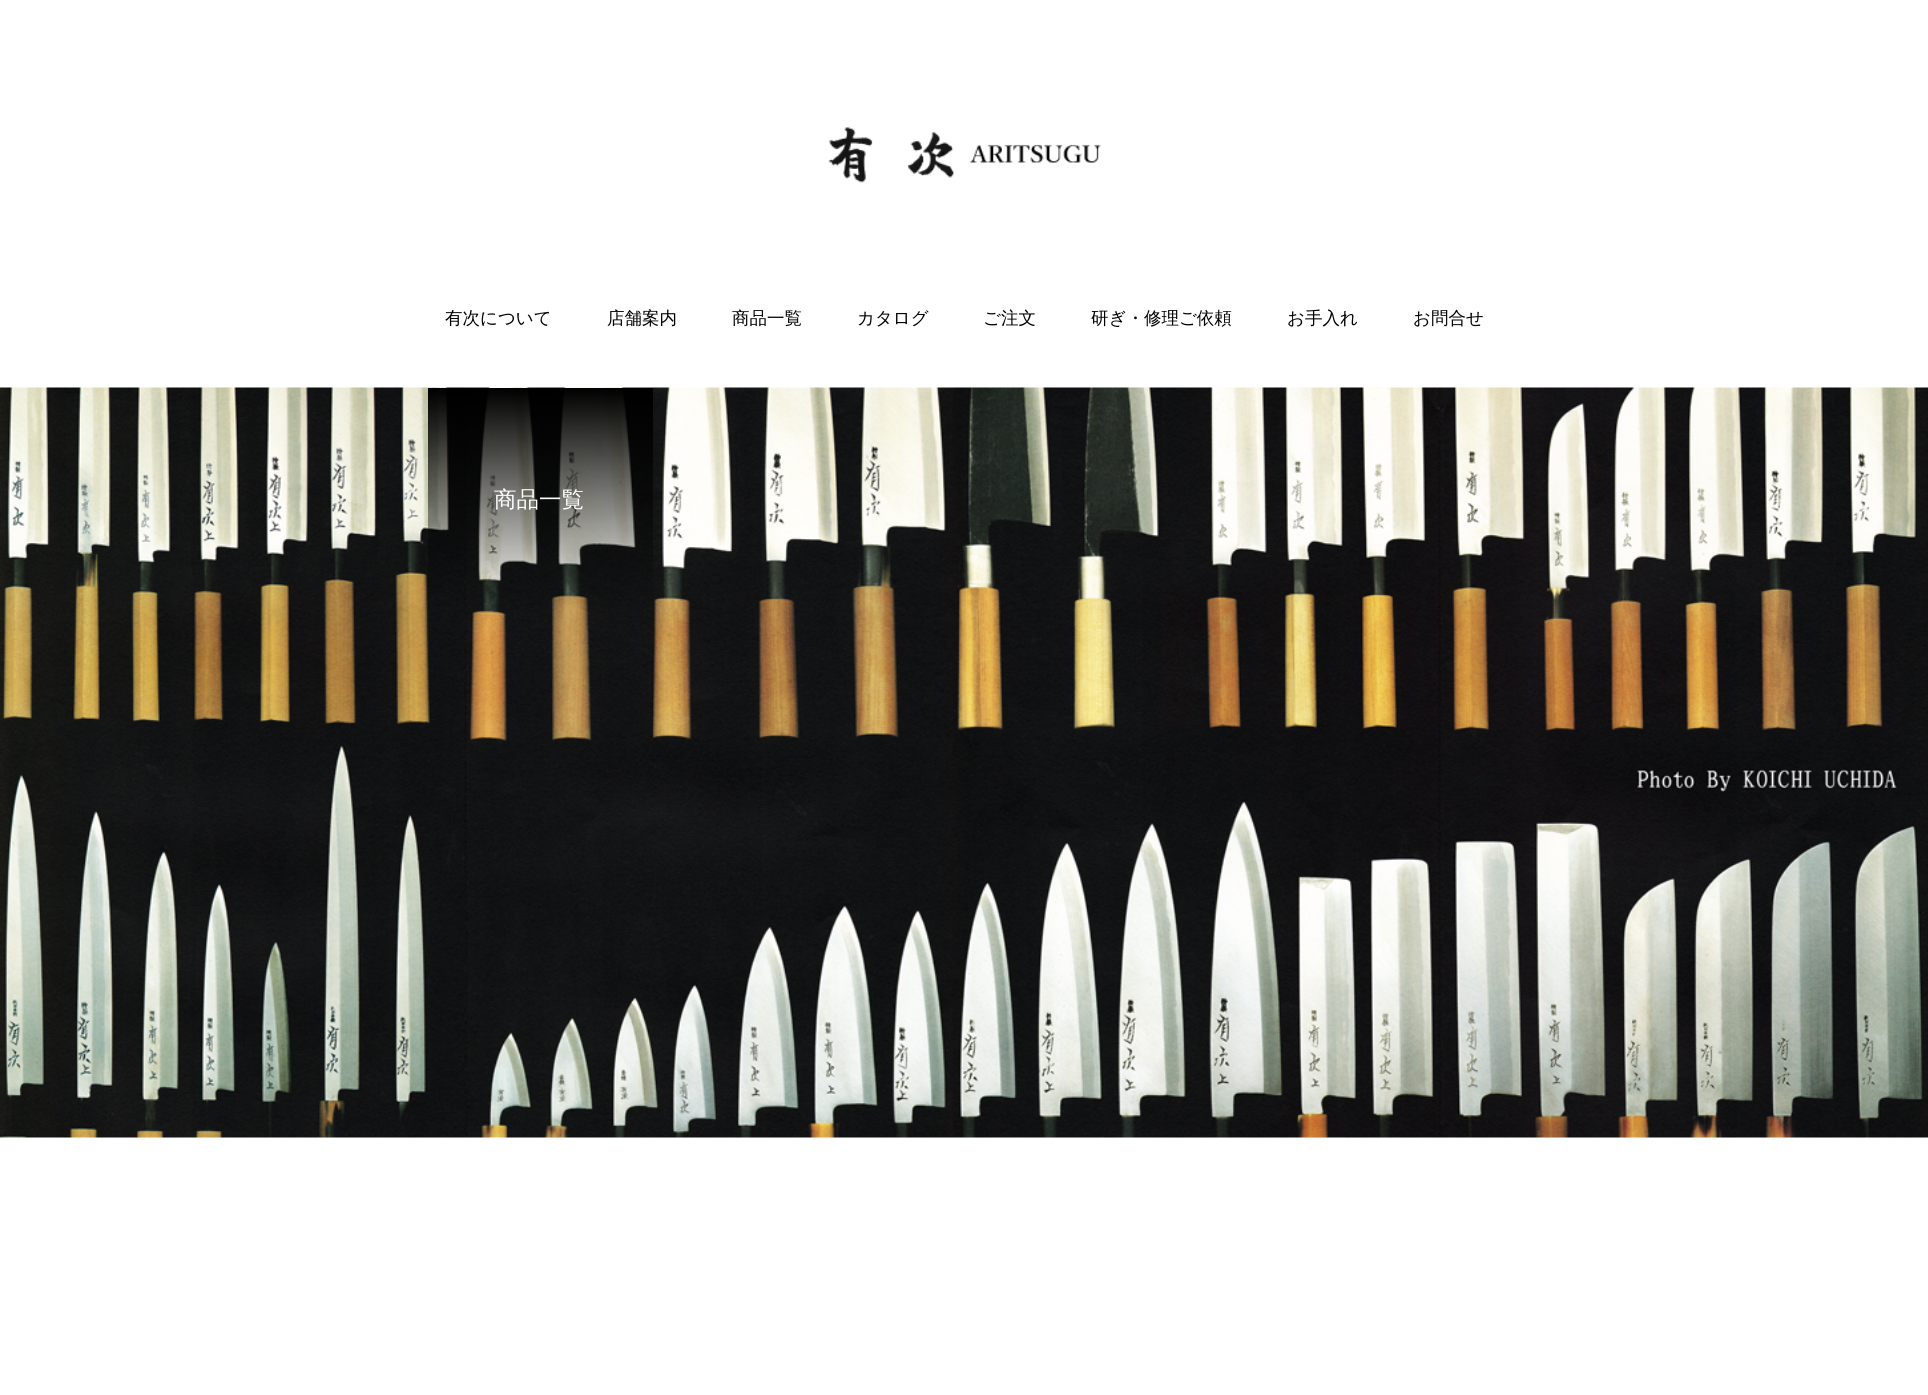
#include <cairo/cairo.h>
#include <math.h>
#include <stddef.h>


static void draw_image(cairo_t *cr, const char *path, double x, double y, double w, double h) {
  cairo_surface_t *image = cairo_image_surface_create_from_png(path);
  cairo_save(cr);
  cairo_set_source_surface(cr, image, x, y);
  cairo_rectangle(cr, x, y, w, h);
  cairo_fill(cr);
  cairo_restore(cr);
  cairo_surface_destroy(image);
}

static void draw(cairo_t *cr) {
  cairo_set_source_rgb(cr, 1, 1, 1);
  cairo_paint(cr);
  draw_image(cr, "images/1.png", 828, 126, 273, 57);
  draw_image(cr, "images/2.png", 0, 387, 1928, 751);
  cairo_select_font_face(cr, "WenQuanYi Zen Hei Medium", CAIRO_FONT_SLANT_NORMAL, CAIRO_FONT_WEIGHT_NORMAL);
  cairo_set_font_size(cr, 17.5);
  cairo_set_source_rgb(cr, 0, 0, 0);
  cairo_move_to(cr, 445, 324);
  cairo_show_text(cr, "有次について");
  cairo_move_to(cr, 607, 324);
  cairo_show_text(cr, "店舗案内");
  cairo_move_to(cr, 732, 324);
  cairo_show_text(cr, "商品一覧");
  cairo_move_to(cr, 857, 324);
  cairo_show_text(cr, "カタログ");
  cairo_move_to(cr, 983, 324);
  cairo_show_text(cr, "ご注文");
  cairo_move_to(cr, 1091, 324);
  cairo_show_text(cr, "研ぎ・修理ご依頼");
  cairo_move_to(cr, 1287, 324);
  cairo_show_text(cr, "お手入れ");
  cairo_move_to(cr, 1413, 324);
  cairo_show_text(cr, "お問合せ");
  cairo_set_font_size(cr, 22.5);
  cairo_set_source_rgb(cr, 1, 1, 1);
  cairo_move_to(cr, 494, 507);
  cairo_show_text(cr, "商品一覧");
}

int main(void) {
  cairo_surface_t *surface = cairo_image_surface_create(CAIRO_FORMAT_RGB24, 1928, 1395);
  cairo_t *cr = cairo_create(surface);
  cairo_font_options_t *options = cairo_font_options_create();
  cairo_font_options_set_hint_metrics(options, CAIRO_HINT_METRICS_OFF);
  cairo_font_options_set_hint_style(options, CAIRO_HINT_STYLE_NONE);
  cairo_set_font_options(cr, options);
  cairo_set_miter_limit(cr, 4);
  draw(cr);
  cairo_surface_write_to_png(surface, "out.png");
  cairo_font_options_destroy(options);
  cairo_destroy(cr);
  cairo_surface_destroy(surface);
  return 0;
}
